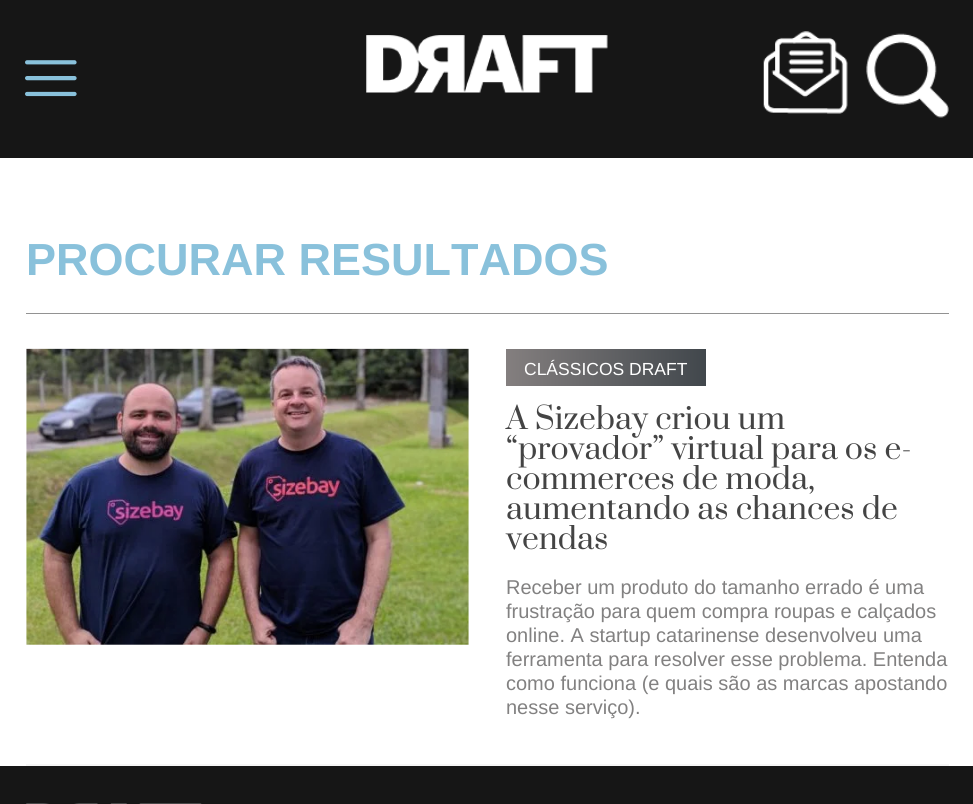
#include <cairo/cairo.h>
#include <math.h>
#include <stddef.h>


static void draw_image(cairo_t *cr, const char *path, double x, double y, double w, double h) {
  cairo_surface_t *image = cairo_image_surface_create_from_png(path);
  cairo_save(cr);
  cairo_set_source_surface(cr, image, x, y);
  cairo_rectangle(cr, x, y, w, h);
  cairo_fill(cr);
  cairo_restore(cr);
  cairo_surface_destroy(image);
}

static void draw(cairo_t *cr) {
  cairo_pattern_t *gradient;
  cairo_set_source_rgb(cr, 1, 1, 1);
  cairo_paint(cr);
  cairo_set_source_rgb(cr, 22 / 255.0, 22 / 255.0, 22 / 255.0);
  cairo_rectangle(cr, 0, 0, 973, 158);
  cairo_fill(cr);
  draw_image(cr, "images/1.png", 25, 60, 52, 37);
  draw_image(cr, "images/2.png", 366, 35, 242, 58);
  draw_image(cr, "images/3.png", 763, 31, 85, 83);
  draw_image(cr, "images/4.png", 866, 33, 83, 85);
  cairo_set_source_rgb(cr, 146 / 255.0, 146 / 255.0, 146 / 255.0);
  cairo_rectangle(cr, 26, 313, 923, 1);
  cairo_fill(cr);
  cairo_set_source_rgb(cr, 246 / 255.0, 246 / 255.0, 246 / 255.0);
  cairo_rectangle(cr, 26, 764, 923, 2);
  cairo_fill(cr);
  draw_image(cr, "images/5.png", 26, 348, 443, 297);
  gradient = cairo_pattern_create_linear(506, 368, 706, 368);
  cairo_pattern_add_color_stop_rgba(gradient, 0, 132 / 255.0, 127 / 255.0, 127 / 255.0, 1);
  cairo_pattern_add_color_stop_rgba(gradient, 1, 65 / 255.0, 71 / 255.0, 76 / 255.0, 1);
  cairo_set_source(cr, gradient);
  cairo_pattern_destroy(gradient);
  cairo_rectangle(cr, 506, 349, 200, 37);
  cairo_fill(cr);
  cairo_set_source_rgb(cr, 22 / 255.0, 22 / 255.0, 22 / 255.0);
  cairo_rectangle(cr, 0, 766, 973, 38);
  cairo_fill(cr);
  draw_image(cr, "images/6.png", 26, 803, 176, 1);
  cairo_select_font_face(cr, "Liberation Sans", CAIRO_FONT_SLANT_NORMAL, CAIRO_FONT_WEIGHT_BOLD);
  cairo_set_font_size(cr, 45);
  cairo_set_source_rgb(cr, 137 / 255.0, 193 / 255.0, 219 / 255.0);
  cairo_move_to(cr, 26, 275);
  cairo_show_text(cr, "PROCURAR RESULTADOS");
  cairo_select_font_face(cr, "Liberation Sans", CAIRO_FONT_SLANT_NORMAL, CAIRO_FONT_WEIGHT_NORMAL);
  cairo_set_font_size(cr, 17.5);
  cairo_set_source_rgb(cr, 1, 1, 1);
  cairo_move_to(cr, 524, 375);
  cairo_show_text(cr, "CLÁSSICOS DRAFT");
  cairo_select_font_face(cr, "Prata", CAIRO_FONT_SLANT_NORMAL, CAIRO_FONT_WEIGHT_NORMAL);
  cairo_set_font_size(cr, 30);
  cairo_set_source_rgb(cr, 68 / 255.0, 68 / 255.0, 68 / 255.0);
  cairo_move_to(cr, 506, 429);
  cairo_show_text(cr, "A Sizebay criou um");
  cairo_move_to(cr, 506, 459);
  cairo_show_text(cr, "“provador” virtual para os e-");
  cairo_move_to(cr, 506, 489);
  cairo_show_text(cr, "commerces de moda,");
  cairo_move_to(cr, 506, 519);
  cairo_show_text(cr, "aumentando as chances de");
  cairo_move_to(cr, 506, 549);
  cairo_show_text(cr, "vendas");
  cairo_select_font_face(cr, "Liberation Sans", CAIRO_FONT_SLANT_NORMAL, CAIRO_FONT_WEIGHT_NORMAL);
  cairo_set_font_size(cr, 20);
  cairo_set_source_rgb(cr, 130 / 255.0, 129 / 255.0, 129 / 255.0);
  cairo_move_to(cr, 506, 594);
  cairo_show_text(cr, "Receber um produto do tamanho errado é uma");
  cairo_move_to(cr, 506, 618);
  cairo_show_text(cr, "frustração para quem compra roupas e calçados");
  cairo_move_to(cr, 506, 642);
  cairo_show_text(cr, "online. A startup catarinense desenvolveu uma");
  cairo_move_to(cr, 506, 666);
  cairo_show_text(cr, "ferramenta para resolver esse problema. Entenda");
  cairo_move_to(cr, 506, 690);
  cairo_show_text(cr, "como funciona (e quais são as marcas apostando");
  cairo_move_to(cr, 506, 714);
  cairo_show_text(cr, "nesse serviço).");
}

int main(void) {
  cairo_surface_t *surface = cairo_image_surface_create(CAIRO_FORMAT_RGB24, 973, 804);
  cairo_t *cr = cairo_create(surface);
  cairo_font_options_t *options = cairo_font_options_create();
  cairo_font_options_set_hint_metrics(options, CAIRO_HINT_METRICS_OFF);
  cairo_font_options_set_hint_style(options, CAIRO_HINT_STYLE_NONE);
  cairo_set_font_options(cr, options);
  cairo_set_miter_limit(cr, 4);
  draw(cr);
  cairo_surface_write_to_png(surface, "out.png");
  cairo_font_options_destroy(options);
  cairo_destroy(cr);
  cairo_surface_destroy(surface);
  return 0;
}
